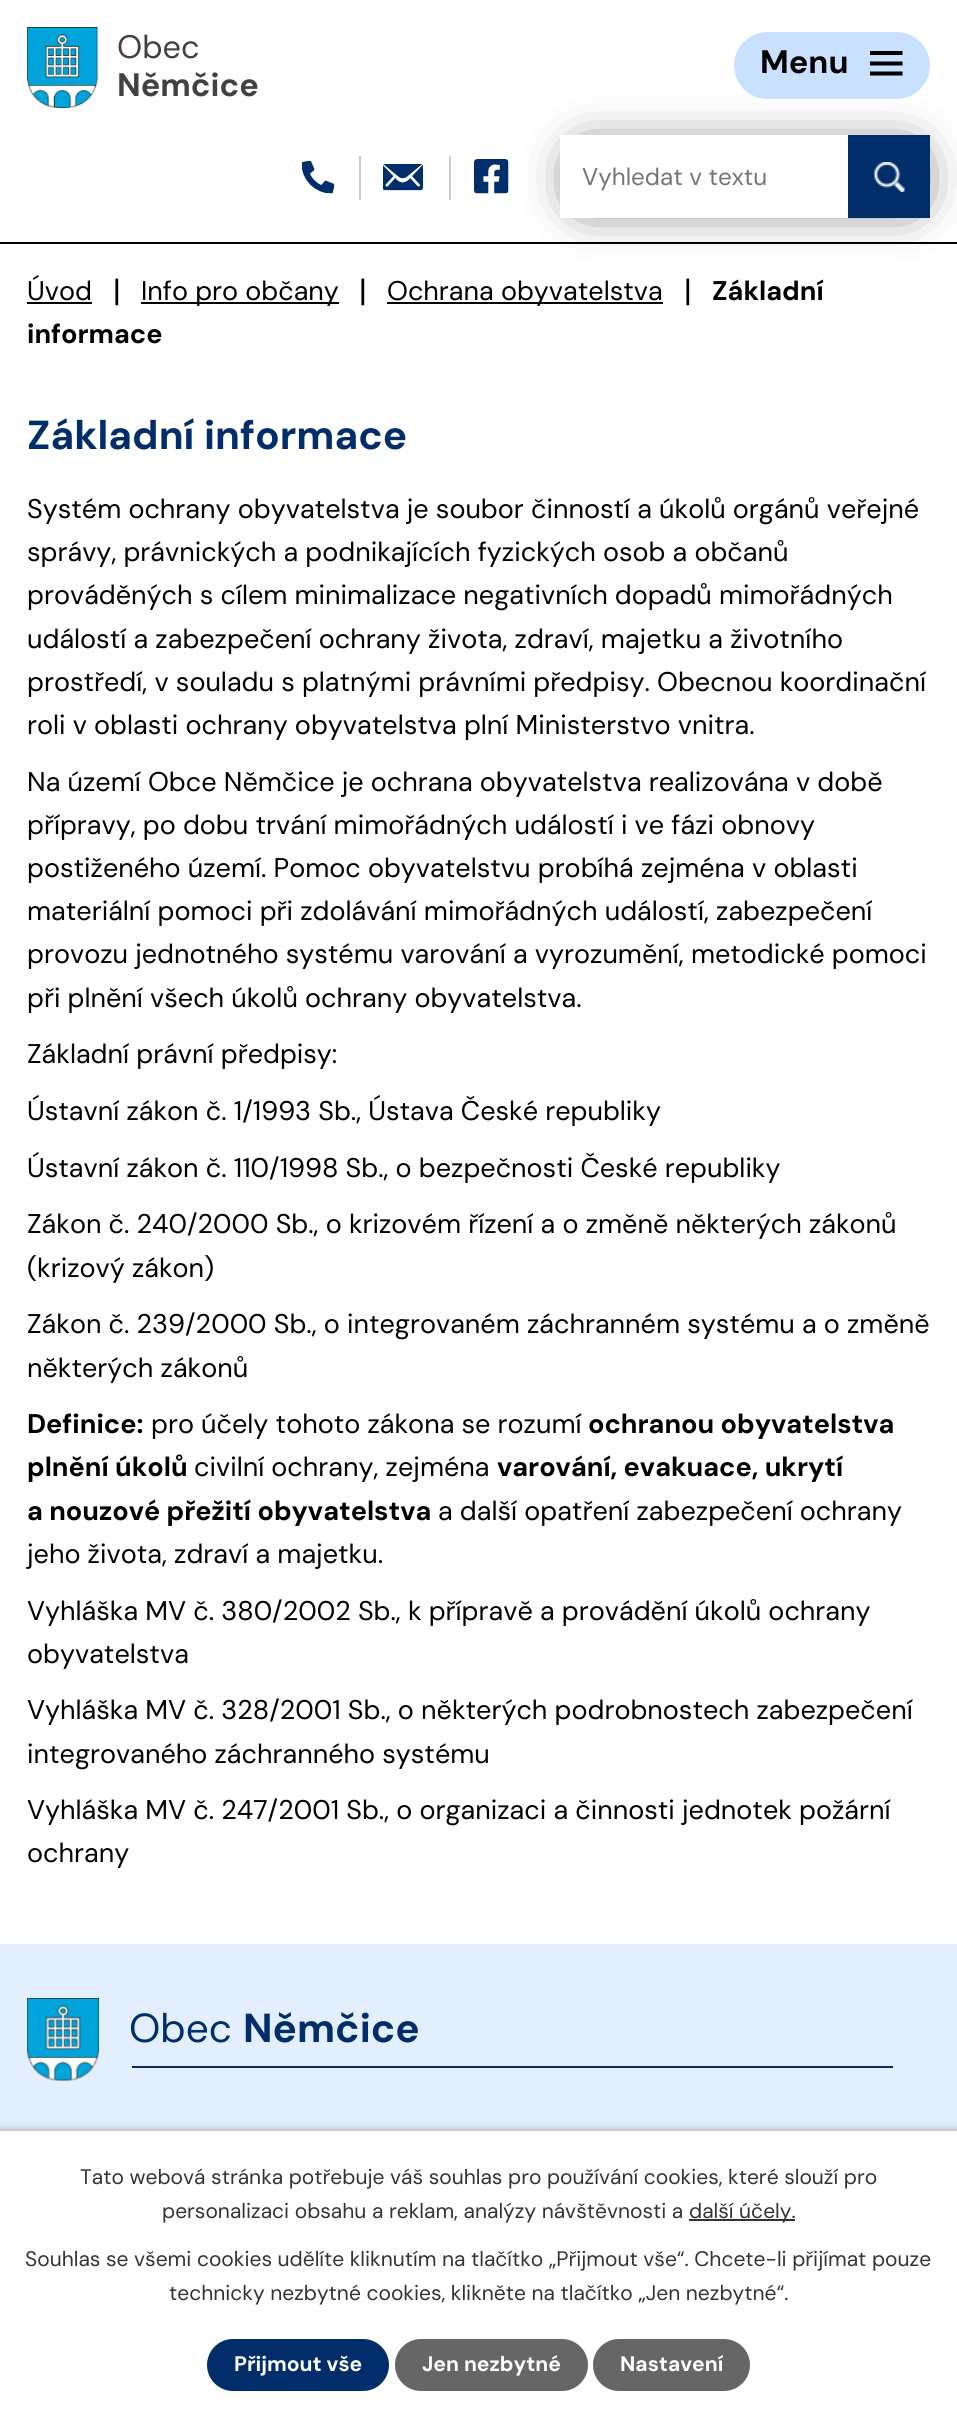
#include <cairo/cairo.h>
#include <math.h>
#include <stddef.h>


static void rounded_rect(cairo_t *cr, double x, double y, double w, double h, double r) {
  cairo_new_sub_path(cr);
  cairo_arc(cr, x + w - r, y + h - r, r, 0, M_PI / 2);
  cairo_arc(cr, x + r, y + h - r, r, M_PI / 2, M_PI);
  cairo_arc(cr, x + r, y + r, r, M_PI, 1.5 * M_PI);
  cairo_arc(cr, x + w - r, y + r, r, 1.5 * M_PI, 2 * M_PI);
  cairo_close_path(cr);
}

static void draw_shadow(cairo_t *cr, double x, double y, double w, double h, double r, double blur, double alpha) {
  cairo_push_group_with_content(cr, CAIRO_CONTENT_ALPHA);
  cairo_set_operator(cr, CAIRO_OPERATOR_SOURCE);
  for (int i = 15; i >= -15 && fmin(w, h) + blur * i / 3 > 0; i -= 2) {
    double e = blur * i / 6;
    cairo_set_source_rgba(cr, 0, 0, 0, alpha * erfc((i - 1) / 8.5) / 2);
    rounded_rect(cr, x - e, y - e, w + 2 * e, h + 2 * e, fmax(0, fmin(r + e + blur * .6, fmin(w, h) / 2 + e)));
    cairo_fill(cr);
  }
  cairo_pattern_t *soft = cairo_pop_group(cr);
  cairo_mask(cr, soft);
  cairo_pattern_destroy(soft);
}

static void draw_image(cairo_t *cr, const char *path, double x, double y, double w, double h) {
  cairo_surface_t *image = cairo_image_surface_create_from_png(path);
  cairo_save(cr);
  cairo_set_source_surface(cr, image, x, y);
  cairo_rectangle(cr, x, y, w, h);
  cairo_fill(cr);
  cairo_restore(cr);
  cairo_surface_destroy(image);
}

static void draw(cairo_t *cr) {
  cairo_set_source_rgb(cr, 1, 1, 1);
  cairo_paint(cr);
  cairo_set_source_rgb(cr, 0, 0, 0);
  cairo_rectangle(cr, 0, 242, 957, 2);
  cairo_fill(cr);
  draw_image(cr, "images/1.png", 27, 27, 71, 81);
  draw_image(cr, "images/2.png", 302, 161, 33, 33);
  cairo_set_source_rgb(cr, 204 / 255.0, 204 / 255.0, 204 / 255.0);
  cairo_rectangle(cr, 449, 156, 2, 44);
  cairo_fill(cr);
  cairo_rectangle(cr, 359, 156, 2, 44);
  cairo_fill(cr);
  draw_image(cr, "images/3.png", 383, 164, 40, 27);
  cairo_set_source_rgb(cr, 0, 0, 0);
  draw_shadow(cr, 584, 159, 325, 38, 0, 26, 1);
  draw_image(cr, "images/4.png", 474, 159, 35, 35);
  cairo_set_source_rgb(cr, 1, 1, 1);
  cairo_rectangle(cr, 560, 135, 288, 83);
  cairo_fill(cr);
  cairo_set_source_rgb(cr, 1 / 255.0, 45 / 255.0, 106 / 255.0);
  cairo_rectangle(cr, 848, 135, 82, 83);
  cairo_fill(cr);
  draw_image(cr, "images/5.png", 874, 162, 31, 30);
  cairo_set_source_rgb(cr, 201 / 255.0, 224 / 255.0, 1);
  rounded_rect(cr, 734, 32, 196, 67, 33.5);
  cairo_fill(cr);
  cairo_set_source_rgb(cr, 0, 0, 0);
  cairo_new_path(cr);
  cairo_move_to(cr, 870, 75.5);
  cairo_line_to(cr, 870, 71.5);
  cairo_line_to(cr, 902.5, 71.5);
  cairo_line_to(cr, 902.5, 75.5);
  cairo_close_path(cr);
  cairo_move_to(cr, 870, 51);
  cairo_line_to(cr, 902.5, 51);
  cairo_line_to(cr, 902.5, 55);
  cairo_line_to(cr, 870, 55);
  cairo_close_path(cr);
  cairo_move_to(cr, 870, 65.5);
  cairo_line_to(cr, 870, 61.5);
  cairo_line_to(cr, 902.5, 61.5);
  cairo_line_to(cr, 902.5, 65.5);
  cairo_close_path(cr);
  cairo_fill(cr);
  cairo_rectangle(cr, 27, 302, 65, 2);
  cairo_fill(cr);
  cairo_rectangle(cr, 141, 302, 198, 2);
  cairo_fill(cr);
  cairo_rectangle(cr, 387, 302, 276, 2);
  cairo_fill(cr);
  cairo_set_source_rgb(cr, 227 / 255.0, 239 / 255.0, 1);
  cairo_rectangle(cr, 0, 1944, 957, 185);
  cairo_fill(cr);
  draw_image(cr, "images/6.png", 27, 1998, 72, 83);
  cairo_set_source_rgb(cr, 1 / 255.0, 45 / 255.0, 106 / 255.0);
  cairo_rectangle(cr, 132, 2066, 761, 2);
  cairo_fill(cr);
  cairo_set_source_rgb(cr, 0, 0, 0);
  draw_shadow(cr, 0, 2129, 957, 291, 0, 4, 0.2);
  cairo_set_source_rgb(cr, 1, 1, 1);
  cairo_rectangle(cr, 0, 2131, 957, 288);
  cairo_fill(cr);
  cairo_set_source_rgb(cr, 204 / 255.0, 204 / 255.0, 204 / 255.0);
  cairo_rectangle(cr, 0, 2129, 957, 2);
  cairo_fill(cr);
  cairo_set_source_rgb(cr, 51 / 255.0, 51 / 255.0, 51 / 255.0);
  cairo_rectangle(cr, 689, 2219, 106, 2);
  cairo_fill(cr);
  cairo_set_source_rgb(cr, 1 / 255.0, 45 / 255.0, 106 / 255.0);
  rounded_rect(cr, 207, 2339, 182, 52, 26);
  cairo_fill(cr);
  cairo_set_source_rgb(cr, 102 / 255.0, 102 / 255.0, 102 / 255.0);
  rounded_rect(cr, 395, 2339, 193, 52, 26);
  cairo_fill(cr);
  rounded_rect(cr, 593, 2339, 157, 52, 26);
  cairo_fill(cr);
  cairo_select_font_face(cr, "DM Sans", CAIRO_FONT_SLANT_NORMAL, CAIRO_FONT_WEIGHT_NORMAL);
  cairo_set_font_size(cr, 32.5);
  cairo_set_source_rgb(cr, 65 / 255.0, 65 / 255.0, 65 / 255.0);
  cairo_move_to(cr, 117, 58);
  cairo_show_text(cr, "Obec");
  cairo_select_font_face(cr, "DM Sans", CAIRO_FONT_SLANT_NORMAL, CAIRO_FONT_WEIGHT_BOLD);
  cairo_move_to(cr, 117, 96);
  cairo_show_text(cr, "Němčice");
  cairo_select_font_face(cr, "DM Sans", CAIRO_FONT_SLANT_NORMAL, CAIRO_FONT_WEIGHT_NORMAL);
  cairo_set_font_size(cr, 24.25);
  cairo_set_source_rgb(cr, 117 / 255.0, 117 / 255.0, 117 / 255.0);
  cairo_move_to(cr, 582, 185);
  cairo_show_text(cr, "Vyhledat v textu");
  cairo_select_font_face(cr, "DM Sans", CAIRO_FONT_SLANT_NORMAL, CAIRO_FONT_WEIGHT_BOLD);
  cairo_set_font_size(cr, 32.5);
  cairo_set_source_rgb(cr, 0, 0, 0);
  cairo_move_to(cr, 760, 73);
  cairo_show_text(cr, "Menu");
  cairo_select_font_face(cr, "DM Sans", CAIRO_FONT_SLANT_NORMAL, CAIRO_FONT_WEIGHT_NORMAL);
  cairo_set_font_size(cr, 27);
  cairo_move_to(cr, 27, 300);
  cairo_show_text(cr, "Úvod");
  cairo_set_font_size(cr, 32.5);
  cairo_move_to(cr, 113, 302);
  cairo_show_text(cr, "|");
  cairo_set_font_size(cr, 27);
  cairo_move_to(cr, 141, 300);
  cairo_show_text(cr, "Info pro občany");
  cairo_set_font_size(cr, 32.5);
  cairo_move_to(cr, 359, 302);
  cairo_show_text(cr, "|");
  cairo_set_font_size(cr, 27);
  cairo_move_to(cr, 387, 300);
  cairo_show_text(cr, "Ochrana obyvatelstva");
  cairo_set_font_size(cr, 32.5);
  cairo_move_to(cr, 684, 302);
  cairo_show_text(cr, "|");
  cairo_select_font_face(cr, "DM Sans", CAIRO_FONT_SLANT_NORMAL, CAIRO_FONT_WEIGHT_BOLD);
  cairo_set_font_size(cr, 27);
  cairo_move_to(cr, 712, 300);
  cairo_show_text(cr, "Základní");
  cairo_move_to(cr, 27, 343);
  cairo_show_text(cr, "informace");
  cairo_set_font_size(cr, 40.5);
  cairo_set_source_rgb(cr, 1 / 255.0, 45 / 255.0, 106 / 255.0);
  cairo_move_to(cr, 27, 449);
  cairo_show_text(cr, "Základní informace");
  cairo_select_font_face(cr, "DM Sans", CAIRO_FONT_SLANT_NORMAL, CAIRO_FONT_WEIGHT_NORMAL);
  cairo_set_font_size(cr, 27);
  cairo_set_source_rgb(cr, 0, 0, 0);
  cairo_move_to(cr, 27, 518);
  cairo_show_text(cr, "Systém ochrany obyvatelstva je soubor činností a úkolů orgánů veřejné");
  cairo_move_to(cr, 27, 561);
  cairo_show_text(cr, "správy, právnických a podnikajících fyzických osob a občanů");
  cairo_move_to(cr, 27, 604);
  cairo_show_text(cr, "prováděných s cílem minimalizace negativních dopadů mimořádných");
  cairo_move_to(cr, 27, 648);
  cairo_show_text(cr, "událostí a zabezpečení ochrany života, zdraví, majetku a životního");
  cairo_move_to(cr, 27, 691);
  cairo_show_text(cr, "prostředí, v souladu s platnými právními předpisy. Obecnou koordinační");
  cairo_move_to(cr, 27, 734);
  cairo_show_text(cr, "roli v oblasti ochrany obyvatelstva plní Ministerstvo vnitra.");
  cairo_move_to(cr, 27, 791);
  cairo_show_text(cr, "Na území Obce Němčice je ochrana obyvatelstva realizována v době");
  cairo_move_to(cr, 27, 834);
  cairo_show_text(cr, "přípravy, po dobu trvání mimořádných událostí i ve fázi obnovy");
  cairo_move_to(cr, 27, 877);
  cairo_show_text(cr, "postiženého území. Pomoc obyvatelstvu probíhá zejména v oblasti");
  cairo_move_to(cr, 27, 920);
  cairo_show_text(cr, "materiální pomoci při zdolávání mimořádných událostí, zabezpečení");
  cairo_move_to(cr, 27, 963);
  cairo_show_text(cr, "provozu jednotného systému varování a vyrozumění, metodické pomoci");
  cairo_move_to(cr, 27, 1007);
  cairo_show_text(cr, "při plnění všech úkolů ochrany obyvatelstva.");
  cairo_move_to(cr, 27, 1063);
  cairo_show_text(cr, "Základní právní předpisy:");
  cairo_move_to(cr, 27, 1120);
  cairo_show_text(cr, "Ústavní zákon č. 1/1993 Sb., Ústava České republiky");
  cairo_move_to(cr, 27, 1177);
  cairo_show_text(cr, "Ústavní zákon č. 110/1998 Sb., o bezpečnosti České republiky");
  cairo_move_to(cr, 27, 1233);
  cairo_show_text(cr, "Zákon č. 240/2000 Sb., o krizovém řízení a o změně některých zákonů");
  cairo_move_to(cr, 27, 1277);
  cairo_show_text(cr, "(krizový zákon)");
  cairo_move_to(cr, 27, 1333);
  cairo_show_text(cr, "Zákon č. 239/2000 Sb., o integrovaném záchranném systému a o změně");
  cairo_move_to(cr, 27, 1377);
  cairo_show_text(cr, "některých zákonů");
  cairo_select_font_face(cr, "DM Sans", CAIRO_FONT_SLANT_NORMAL, CAIRO_FONT_WEIGHT_BOLD);
  cairo_move_to(cr, 27, 1433);
  cairo_show_text(cr, "Definice:");
  cairo_select_font_face(cr, "DM Sans", CAIRO_FONT_SLANT_NORMAL, CAIRO_FONT_WEIGHT_NORMAL);
  cairo_move_to(cr, 151, 1433);
  cairo_show_text(cr, "pro účely tohoto zákona se rozumí");
  cairo_select_font_face(cr, "DM Sans", CAIRO_FONT_SLANT_NORMAL, CAIRO_FONT_WEIGHT_BOLD);
  cairo_move_to(cr, 588, 1433);
  cairo_show_text(cr, "ochranou obyvatelstva");
  cairo_move_to(cr, 27, 1476);
  cairo_show_text(cr, "plnění úkolů");
  cairo_select_font_face(cr, "DM Sans", CAIRO_FONT_SLANT_NORMAL, CAIRO_FONT_WEIGHT_NORMAL);
  cairo_move_to(cr, 194, 1476);
  cairo_show_text(cr, "civilní ochrany, zejména");
  cairo_select_font_face(cr, "DM Sans", CAIRO_FONT_SLANT_NORMAL, CAIRO_FONT_WEIGHT_BOLD);
  cairo_move_to(cr, 497, 1476);
  cairo_show_text(cr, "varování, evakuace, ukrytí");
  cairo_move_to(cr, 27, 1520);
  cairo_show_text(cr, "a nouzové přežití obyvatelstva");
  cairo_select_font_face(cr, "DM Sans", CAIRO_FONT_SLANT_NORMAL, CAIRO_FONT_WEIGHT_NORMAL);
  cairo_move_to(cr, 438, 1520);
  cairo_show_text(cr, "a další opatření zabezpečení ochrany");
  cairo_move_to(cr, 27, 1563);
  cairo_show_text(cr, "jeho života, zdraví a majetku.");
  cairo_move_to(cr, 27, 1620);
  cairo_show_text(cr, "Vyhláška MV č. 380/2002 Sb., k přípravě a provádění úkolů ochrany");
  cairo_move_to(cr, 27, 1663);
  cairo_show_text(cr, "obyvatelstva");
  cairo_move_to(cr, 27, 1719);
  cairo_show_text(cr, "Vyhláška MV č. 328/2001 Sb., o některých podrobnostech zabezpečení");
  cairo_move_to(cr, 27, 1763);
  cairo_show_text(cr, "integrovaného záchranného systému");
  cairo_move_to(cr, 27, 1819);
  cairo_show_text(cr, "Vyhláška MV č. 247/2001 Sb., o organizaci a činnosti jednotek požární");
  cairo_move_to(cr, 27, 1862);
  cairo_show_text(cr, "ochrany");
  cairo_set_font_size(cr, 40.5);
  cairo_set_source_rgb(cr, 1 / 255.0, 45 / 255.0, 106 / 255.0);
  cairo_move_to(cr, 129, 2042);
  cairo_show_text(cr, "Obec");
  cairo_select_font_face(cr, "DM Sans", CAIRO_FONT_SLANT_NORMAL, CAIRO_FONT_WEIGHT_BOLD);
  cairo_move_to(cr, 243, 2042);
  cairo_show_text(cr, "Němčice");
  cairo_select_font_face(cr, "DM Sans", CAIRO_FONT_SLANT_NORMAL, CAIRO_FONT_WEIGHT_NORMAL);
  cairo_set_font_size(cr, 21);
  cairo_set_source_rgb(cr, 51 / 255.0, 51 / 255.0, 51 / 255.0);
  cairo_move_to(cr, 80, 2184);
  cairo_show_text(cr, "Tato webová stránka potřebuje váš souhlas pro používání cookies, které slouží pro");
  cairo_move_to(cr, 162, 2218);
  cairo_show_text(cr, "personalizaci obsahu a reklam, analýzy návštěvnosti a");
  cairo_move_to(cr, 689, 2218);
  cairo_show_text(cr, "další účely.");
  cairo_move_to(cr, 25, 2266);
  cairo_show_text(cr, "Souhlas se všemi cookies udělíte kliknutím na tlačítko „Přijmout vše“. Chcete-li přijímat pouze");
  cairo_move_to(cr, 169, 2300);
  cairo_show_text(cr, "technicky nezbytné cookies, klikněte na tlačítko „Jen nezbytné“.");
  cairo_select_font_face(cr, "DM Sans", CAIRO_FONT_SLANT_NORMAL, CAIRO_FONT_WEIGHT_BOLD);
  cairo_set_source_rgb(cr, 1, 1, 1);
  cairo_move_to(cr, 234, 2371);
  cairo_show_text(cr, "Přijmout vše");
  cairo_move_to(cr, 422, 2371);
  cairo_show_text(cr, "Jen nezbytné");
  cairo_move_to(cr, 620, 2371);
  cairo_show_text(cr, "Nastavení");
}

int main(void) {
  cairo_surface_t *surface = cairo_image_surface_create(CAIRO_FORMAT_RGB24, 957, 2419);
  cairo_t *cr = cairo_create(surface);
  cairo_font_options_t *options = cairo_font_options_create();
  cairo_font_options_set_hint_metrics(options, CAIRO_HINT_METRICS_OFF);
  cairo_font_options_set_hint_style(options, CAIRO_HINT_STYLE_NONE);
  cairo_set_font_options(cr, options);
  cairo_set_miter_limit(cr, 4);
  draw(cr);
  cairo_surface_write_to_png(surface, "out.png");
  cairo_font_options_destroy(options);
  cairo_destroy(cr);
  cairo_surface_destroy(surface);
  return 0;
}
